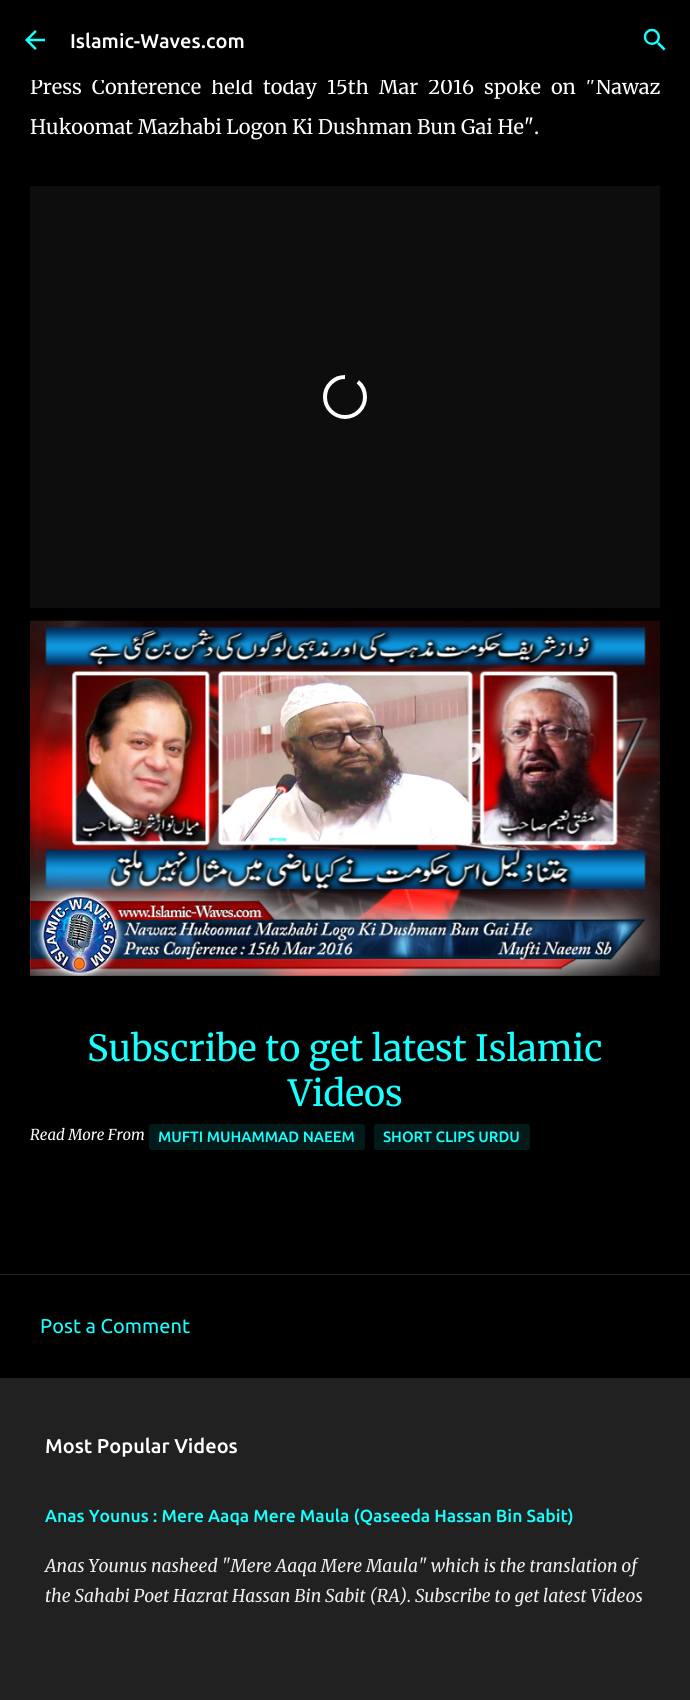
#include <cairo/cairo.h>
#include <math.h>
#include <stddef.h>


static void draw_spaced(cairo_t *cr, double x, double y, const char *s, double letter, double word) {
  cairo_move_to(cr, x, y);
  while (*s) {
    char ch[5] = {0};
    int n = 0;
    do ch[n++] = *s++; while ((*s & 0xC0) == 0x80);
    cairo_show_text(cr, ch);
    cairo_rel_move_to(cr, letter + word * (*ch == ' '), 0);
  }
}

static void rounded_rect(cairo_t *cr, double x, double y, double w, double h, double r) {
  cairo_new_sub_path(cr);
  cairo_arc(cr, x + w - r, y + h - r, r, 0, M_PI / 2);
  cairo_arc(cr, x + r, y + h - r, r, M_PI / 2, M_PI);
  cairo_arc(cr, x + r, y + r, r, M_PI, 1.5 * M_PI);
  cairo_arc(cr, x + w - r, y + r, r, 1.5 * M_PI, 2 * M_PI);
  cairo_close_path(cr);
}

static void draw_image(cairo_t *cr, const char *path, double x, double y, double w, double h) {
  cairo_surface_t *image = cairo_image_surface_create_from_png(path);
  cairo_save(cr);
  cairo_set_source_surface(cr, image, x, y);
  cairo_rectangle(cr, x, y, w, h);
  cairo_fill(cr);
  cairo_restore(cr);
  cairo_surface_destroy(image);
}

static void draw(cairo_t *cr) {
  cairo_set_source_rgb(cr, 33 / 255.0, 33 / 255.0, 33 / 255.0);
  cairo_paint(cr);
  cairo_set_source_rgb(cr, 0, 0, 0);
  cairo_rectangle(cr, 0, 80, 690, 1194);
  cairo_fill(cr);
  draw_image(cr, "images/3.png", 30, 186, 630, 422);
  draw_image(cr, "images/4.png", 30, 620, 630, 356);
  cairo_set_source_rgb(cr, 2 / 255.0, 26 / 255.0, 26 / 255.0);
  rounded_rect(cr, 149, 1124, 216, 26, 2.5);
  cairo_fill(cr);
  rounded_rect(cr, 374, 1124, 156, 26, 2.5);
  cairo_fill(cr);
  cairo_set_source_rgb(cr, 0, 0, 0);
  cairo_rectangle(cr, 0, 1275, 690, 103);
  cairo_fill(cr);
  cairo_select_font_face(cr, "Merriweather Light", CAIRO_FONT_SLANT_NORMAL, CAIRO_FONT_WEIGHT_NORMAL);
  cairo_set_font_size(cr, 20);
  cairo_set_source_rgb(cr, 1, 1, 1);
  draw_spaced(cr, 30, 94, "Press Conference held today 15th Mar 2016 spoke on \"Nawaz", 0, 5.25);
  cairo_set_source_rgb(cr, 0, 0, 0);
  cairo_rectangle(cr, 0, 0, 690, 80);
  cairo_fill(cr);
  draw_image(cr, "images/2.png", 643, 28, 23, 23);
  cairo_select_font_face(cr, "Ubuntu Medium", CAIRO_FONT_SLANT_NORMAL, CAIRO_FONT_WEIGHT_NORMAL);
  cairo_set_source_rgb(cr, 1, 1, 1);
  cairo_move_to(cr, 70, 48);
  cairo_show_text(cr, "Islamic-Waves.com");
  draw_image(cr, "images/1.png", 25, 30, 20, 20);
  cairo_select_font_face(cr, "Merriweather Light", CAIRO_FONT_SLANT_NORMAL, CAIRO_FONT_WEIGHT_NORMAL);
  cairo_move_to(cr, 30, 134);
  cairo_show_text(cr, "Hukoomat Mazhabi Logon Ki Dushman Bun Gai He\".");
  cairo_set_font_size(cr, 36);
  cairo_set_source_rgb(cr, 24 / 255.0, 1, 1);
  cairo_move_to(cr, 87, 1061);
  cairo_show_text(cr, "Subscribe to get latest Islamic");
  cairo_move_to(cr, 288, 1106);
  cairo_show_text(cr, "Videos");
  cairo_select_font_face(cr, "Merriweather", CAIRO_FONT_SLANT_ITALIC, CAIRO_FONT_WEIGHT_NORMAL);
  cairo_set_font_size(cr, 15);
  cairo_set_source_rgb(cr, 1, 1, 1);
  cairo_move_to(cr, 30, 1140);
  cairo_show_text(cr, "Read More From");
  cairo_select_font_face(cr, "Ubuntu Medium", CAIRO_FONT_SLANT_NORMAL, CAIRO_FONT_WEIGHT_NORMAL);
  cairo_set_source_rgb(cr, 24 / 255.0, 1, 1);
  cairo_move_to(cr, 158, 1142);
  cairo_show_text(cr, "MUFTI MUHAMMAD NAEEM");
  cairo_move_to(cr, 383, 1142);
  cairo_show_text(cr, "SHORT CLIPS URDU");
  cairo_select_font_face(cr, "Ubuntu", CAIRO_FONT_SLANT_NORMAL, CAIRO_FONT_WEIGHT_NORMAL);
  cairo_set_font_size(cr, 20);
  cairo_move_to(cr, 40, 1333);
  cairo_show_text(cr, "Post a Comment");
  cairo_select_font_face(cr, "Ubuntu Medium", CAIRO_FONT_SLANT_NORMAL, CAIRO_FONT_WEIGHT_NORMAL);
  cairo_set_source_rgb(cr, 1, 1, 1);
  cairo_move_to(cr, 45, 1453);
  cairo_show_text(cr, "Most Popular Videos");
  cairo_set_font_size(cr, 17.5);
  cairo_set_source_rgb(cr, 24 / 255.0, 1, 1);
  cairo_move_to(cr, 45, 1522);
  cairo_show_text(cr, "Anas Younus : Mere Aaqa Mere Maula (Qaseeda Hassan Bin Sabit)");
  cairo_select_font_face(cr, "Merriweather", CAIRO_FONT_SLANT_ITALIC, CAIRO_FONT_WEIGHT_NORMAL);
  cairo_set_source_rgb(cr, 238 / 255.0, 238 / 255.0, 238 / 255.0);
  cairo_move_to(cr, 45, 1572);
  cairo_show_text(cr, "Anas Younus nasheed \"Mere Aaqa Mere Maula\" which is the translation of");
  cairo_move_to(cr, 45, 1602);
  cairo_show_text(cr, "the Sahabi Poet Hazrat Hassan Bin Sabit (RA). Subscribe to get latest Videos");
}

int main(void) {
  cairo_surface_t *surface = cairo_image_surface_create(CAIRO_FORMAT_RGB24, 690, 1700);
  cairo_t *cr = cairo_create(surface);
  cairo_font_options_t *options = cairo_font_options_create();
  cairo_font_options_set_hint_metrics(options, CAIRO_HINT_METRICS_OFF);
  cairo_font_options_set_hint_style(options, CAIRO_HINT_STYLE_NONE);
  cairo_set_font_options(cr, options);
  cairo_set_miter_limit(cr, 4);
  draw(cr);
  cairo_surface_write_to_png(surface, "out.png");
  cairo_font_options_destroy(options);
  cairo_destroy(cr);
  cairo_surface_destroy(surface);
  return 0;
}
